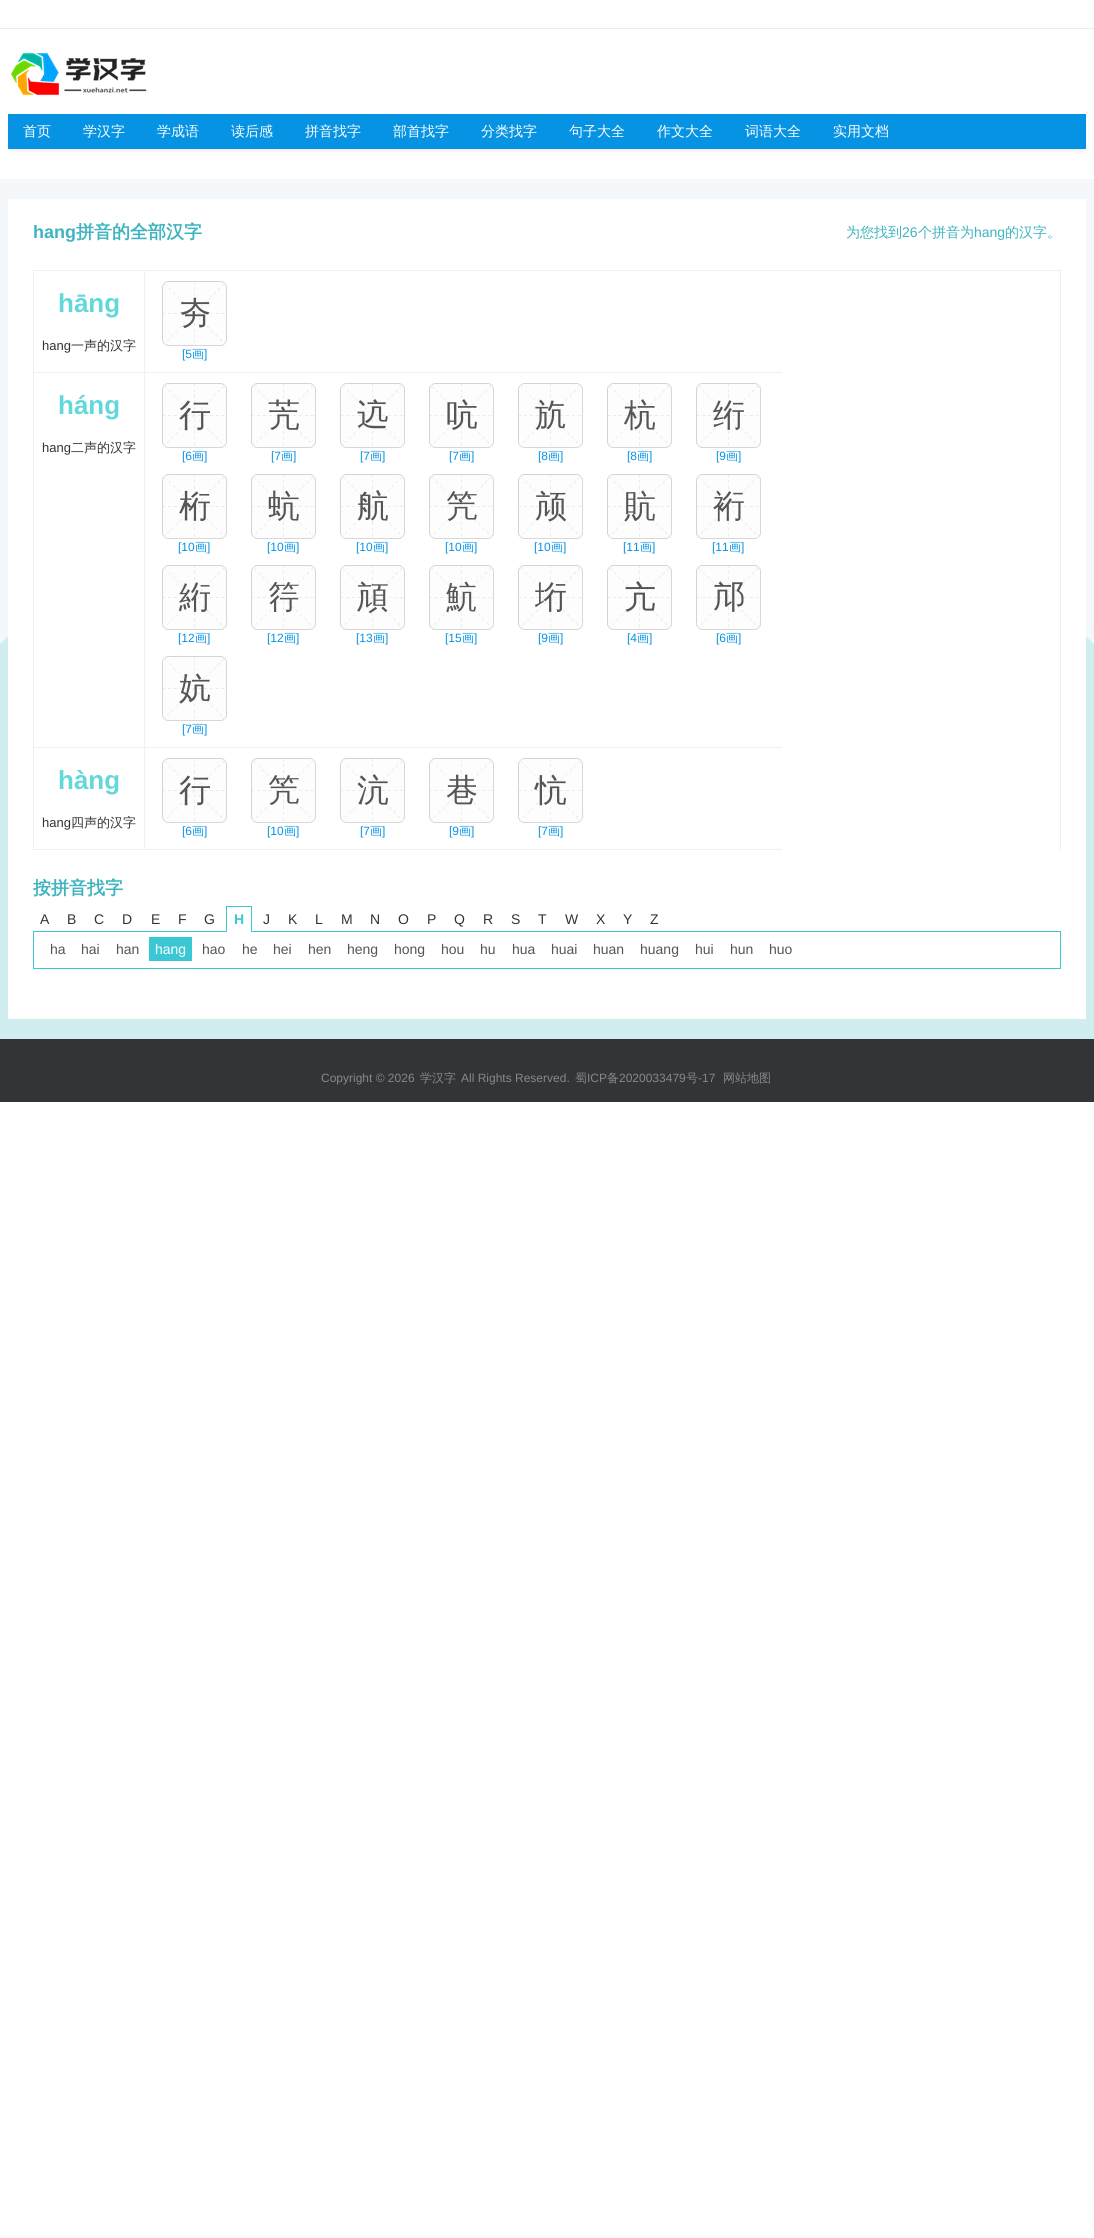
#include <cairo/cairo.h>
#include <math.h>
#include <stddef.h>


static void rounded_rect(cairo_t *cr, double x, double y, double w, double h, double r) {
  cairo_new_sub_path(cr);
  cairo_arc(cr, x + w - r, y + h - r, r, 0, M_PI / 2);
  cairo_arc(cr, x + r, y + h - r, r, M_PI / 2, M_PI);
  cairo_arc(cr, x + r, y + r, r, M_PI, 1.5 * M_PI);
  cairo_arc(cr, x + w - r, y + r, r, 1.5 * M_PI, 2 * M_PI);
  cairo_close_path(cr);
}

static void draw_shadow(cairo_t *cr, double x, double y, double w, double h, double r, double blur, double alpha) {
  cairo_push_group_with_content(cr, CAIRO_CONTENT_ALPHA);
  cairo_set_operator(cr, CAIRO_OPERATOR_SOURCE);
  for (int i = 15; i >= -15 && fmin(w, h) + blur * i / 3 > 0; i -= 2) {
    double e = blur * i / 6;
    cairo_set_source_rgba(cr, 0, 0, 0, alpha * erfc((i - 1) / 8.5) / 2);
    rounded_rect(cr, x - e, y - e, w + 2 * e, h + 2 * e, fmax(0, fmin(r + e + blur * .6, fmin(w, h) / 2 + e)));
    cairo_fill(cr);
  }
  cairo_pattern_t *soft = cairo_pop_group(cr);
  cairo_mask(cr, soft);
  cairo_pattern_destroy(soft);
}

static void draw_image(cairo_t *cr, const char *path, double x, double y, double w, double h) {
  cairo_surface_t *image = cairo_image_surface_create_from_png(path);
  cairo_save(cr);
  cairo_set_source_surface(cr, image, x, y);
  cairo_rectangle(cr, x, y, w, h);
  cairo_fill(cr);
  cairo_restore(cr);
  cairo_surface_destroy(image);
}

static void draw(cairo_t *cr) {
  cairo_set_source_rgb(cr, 1, 1, 1);
  cairo_paint(cr);
  cairo_set_source_rgb(cr, 235 / 255.0, 235 / 255.0, 235 / 255.0);
  cairo_rectangle(cr, 0, 28, 1094, 1);
  cairo_fill(cr);
  draw_image(cr, "images/1.png", 11, 52, 136, 44);
  cairo_set_source_rgb(cr, 0, 0, 0);
  draw_shadow(cr, 10, 119, 1074, 31, 0, 2.5, 0.1);
  cairo_set_source_rgb(cr, 6 / 255.0, 147 / 255.0, 227 / 255.0);
  cairo_rectangle(cr, 8, 114, 1078, 35);
  cairo_fill(cr);
  cairo_set_source_rgb(cr, 208 / 255.0, 237 / 255.0, 240 / 255.0);
  cairo_rectangle(cr, 0, 646, 1094, 393);
  cairo_fill(cr);
  draw_image(cr, "images/2.png", 0, 179, 1094, 467);
  cairo_set_source_rgb(cr, 1, 1, 1);
  cairo_rectangle(cr, 8, 199, 1078, 820);
  cairo_fill(cr);
  cairo_set_source_rgb(cr, 236 / 255.0, 241 / 255.0, 244 / 255.0);
  cairo_rectangle(cr, 33, 270, 1028, 1);
  cairo_fill(cr);
  cairo_rectangle(cr, 1060, 270, 1, 580);
  cairo_fill(cr);
  cairo_rectangle(cr, 33, 270, 1, 580);
  cairo_fill(cr);
  cairo_rectangle(cr, 34, 372, 748, 1);
  cairo_fill(cr);
  cairo_rectangle(cr, 144, 271, 1, 101);
  cairo_fill(cr);
  draw_image(cr, "images/3.png", 162, 281, 65, 65);
  cairo_rectangle(cr, 34, 747, 748, 1);
  cairo_fill(cr);
  cairo_rectangle(cr, 144, 373, 1, 374);
  cairo_fill(cr);
  draw_image(cr, "images/3.png", 162, 383, 65, 65);
  draw_image(cr, "images/3.png", 251, 383, 65, 65);
  draw_image(cr, "images/4.png", 340, 383, 65, 65);
  draw_image(cr, "images/3.png", 429, 383, 65, 65);
  draw_image(cr, "images/3.png", 518, 383, 65, 65);
  draw_image(cr, "images/4.png", 607, 383, 65, 65);
  draw_image(cr, "images/3.png", 696, 383, 65, 65);
  draw_image(cr, "images/3.png", 162, 474, 65, 65);
  draw_image(cr, "images/3.png", 251, 474, 65, 65);
  draw_image(cr, "images/4.png", 340, 474, 65, 65);
  draw_image(cr, "images/3.png", 429, 474, 65, 65);
  draw_image(cr, "images/3.png", 518, 474, 65, 65);
  draw_image(cr, "images/4.png", 607, 474, 65, 65);
  draw_image(cr, "images/3.png", 696, 474, 65, 65);
  draw_image(cr, "images/5.png", 162, 565, 65, 65);
  draw_image(cr, "images/5.png", 251, 565, 65, 65);
  draw_image(cr, "images/6.png", 340, 565, 65, 65);
  draw_image(cr, "images/5.png", 429, 565, 65, 65);
  draw_image(cr, "images/5.png", 518, 565, 65, 65);
  draw_image(cr, "images/6.png", 607, 565, 65, 65);
  draw_image(cr, "images/5.png", 696, 565, 65, 65);
  draw_image(cr, "images/3.png", 162, 656, 65, 65);
  cairo_rectangle(cr, 34, 849, 748, 1);
  cairo_fill(cr);
  cairo_rectangle(cr, 144, 748, 1, 101);
  cairo_fill(cr);
  draw_image(cr, "images/3.png", 162, 758, 65, 65);
  draw_image(cr, "images/3.png", 251, 758, 65, 65);
  draw_image(cr, "images/4.png", 340, 758, 65, 65);
  draw_image(cr, "images/3.png", 429, 758, 65, 65);
  draw_image(cr, "images/3.png", 518, 758, 65, 65);
  cairo_rectangle(cr, 33.5, 931.5, 1027, 37);
  cairo_set_source_rgb(cr, 59 / 255.0, 200 / 255.0, 212 / 255.0);
  cairo_set_line_width(cr, 1);
  cairo_stroke(cr);
  cairo_set_source_rgb(cr, 1, 1, 1);
  cairo_rectangle(cr, 227, 931, 24, 1);
  cairo_fill(cr);
  cairo_set_source_rgb(cr, 59 / 255.0, 200 / 255.0, 212 / 255.0);
  cairo_rectangle(cr, 226, 906, 26, 1);
  cairo_fill(cr);
  cairo_rectangle(cr, 251, 906, 1, 26);
  cairo_fill(cr);
  cairo_rectangle(cr, 226, 906, 1, 26);
  cairo_fill(cr);
  cairo_rectangle(cr, 149, 937, 43, 24);
  cairo_fill(cr);
  cairo_set_source_rgb(cr, 51 / 255.0, 52 / 255.0, 56 / 255.0);
  cairo_rectangle(cr, 0, 1039, 1094, 63);
  cairo_fill(cr);
  cairo_select_font_face(cr, "WenQuanYi Zen Hei Medium", CAIRO_FONT_SLANT_NORMAL, CAIRO_FONT_WEIGHT_NORMAL);
  cairo_set_font_size(cr, 14);
  cairo_set_source_rgb(cr, 1, 1, 1);
  cairo_move_to(cr, 23, 136);
  cairo_show_text(cr, "首页");
  cairo_move_to(cr, 83, 136);
  cairo_show_text(cr, "学汉字");
  cairo_move_to(cr, 157, 136);
  cairo_show_text(cr, "学成语");
  cairo_move_to(cr, 231, 136);
  cairo_show_text(cr, "读后感");
  cairo_move_to(cr, 305, 136);
  cairo_show_text(cr, "拼音找字");
  cairo_move_to(cr, 393, 136);
  cairo_show_text(cr, "部首找字");
  cairo_move_to(cr, 481, 136);
  cairo_show_text(cr, "分类找字");
  cairo_move_to(cr, 569, 136);
  cairo_show_text(cr, "句子大全");
  cairo_move_to(cr, 657, 136);
  cairo_show_text(cr, "作文大全");
  cairo_move_to(cr, 745, 136);
  cairo_show_text(cr, "词语大全");
  cairo_move_to(cr, 833, 136);
  cairo_show_text(cr, "实用文档");
  cairo_select_font_face(cr, "Liberation Sans", CAIRO_FONT_SLANT_NORMAL, CAIRO_FONT_WEIGHT_BOLD);
  cairo_set_font_size(cr, 18);
  cairo_set_source_rgb(cr, 61 / 255.0, 180 / 255.0, 191 / 255.0);
  cairo_move_to(cr, 33, 238);
  cairo_show_text(cr, "hang");
  cairo_select_font_face(cr, "WenQuanYi Zen Hei", CAIRO_FONT_SLANT_NORMAL, CAIRO_FONT_WEIGHT_BOLD);
  cairo_move_to(cr, 76, 238);
  cairo_show_text(cr, "拼音的全部汉字");
  cairo_select_font_face(cr, "WenQuanYi Zen Hei Medium", CAIRO_FONT_SLANT_NORMAL, CAIRO_FONT_WEIGHT_NORMAL);
  cairo_set_font_size(cr, 14);
  cairo_move_to(cr, 846, 237);
  cairo_show_text(cr, "为您找到");
  cairo_select_font_face(cr, "Liberation Sans", CAIRO_FONT_SLANT_NORMAL, CAIRO_FONT_WEIGHT_NORMAL);
  cairo_move_to(cr, 902, 237);
  cairo_show_text(cr, "26");
  cairo_select_font_face(cr, "WenQuanYi Zen Hei Medium", CAIRO_FONT_SLANT_NORMAL, CAIRO_FONT_WEIGHT_NORMAL);
  cairo_move_to(cr, 918, 237);
  cairo_show_text(cr, "个拼音为");
  cairo_select_font_face(cr, "Liberation Sans", CAIRO_FONT_SLANT_NORMAL, CAIRO_FONT_WEIGHT_NORMAL);
  cairo_move_to(cr, 974, 237);
  cairo_show_text(cr, "hang");
  cairo_select_font_face(cr, "WenQuanYi Zen Hei Medium", CAIRO_FONT_SLANT_NORMAL, CAIRO_FONT_WEIGHT_NORMAL);
  cairo_move_to(cr, 1005, 237);
  cairo_show_text(cr, "的汉字。");
  cairo_select_font_face(cr, "Liberation Sans", CAIRO_FONT_SLANT_NORMAL, CAIRO_FONT_WEIGHT_BOLD);
  cairo_set_font_size(cr, 26);
  cairo_set_source_rgb(cr, 98 / 255.0, 216 / 255.0, 218 / 255.0);
  cairo_move_to(cr, 58, 312);
  cairo_show_text(cr, "hāng");
  cairo_select_font_face(cr, "Liberation Sans", CAIRO_FONT_SLANT_NORMAL, CAIRO_FONT_WEIGHT_NORMAL);
  cairo_set_font_size(cr, 13);
  cairo_set_source_rgb(cr, 51 / 255.0, 51 / 255.0, 51 / 255.0);
  cairo_move_to(cr, 42, 350);
  cairo_show_text(cr, "hang");
  cairo_select_font_face(cr, "WenQuanYi Zen Hei Medium", CAIRO_FONT_SLANT_NORMAL, CAIRO_FONT_WEIGHT_NORMAL);
  cairo_move_to(cr, 71, 350);
  cairo_show_text(cr, "一声的汉字");
  cairo_set_font_size(cr, 32);
  cairo_set_source_rgb(cr, 85 / 255.0, 85 / 255.0, 85 / 255.0);
  cairo_move_to(cr, 179, 324);
  cairo_show_text(cr, "夯");
  cairo_select_font_face(cr, "Liberation Sans", CAIRO_FONT_SLANT_NORMAL, CAIRO_FONT_WEIGHT_NORMAL);
  cairo_set_font_size(cr, 12);
  cairo_set_source_rgb(cr, 6 / 255.0, 147 / 255.0, 227 / 255.0);
  cairo_move_to(cr, 182, 358);
  cairo_show_text(cr, "[5");
  cairo_select_font_face(cr, "WenQuanYi Zen Hei Medium", CAIRO_FONT_SLANT_NORMAL, CAIRO_FONT_WEIGHT_NORMAL);
  cairo_move_to(cr, 192, 358);
  cairo_show_text(cr, "画");
  cairo_select_font_face(cr, "Liberation Sans", CAIRO_FONT_SLANT_NORMAL, CAIRO_FONT_WEIGHT_NORMAL);
  cairo_move_to(cr, 204, 358);
  cairo_show_text(cr, "]");
  cairo_select_font_face(cr, "Liberation Sans", CAIRO_FONT_SLANT_NORMAL, CAIRO_FONT_WEIGHT_BOLD);
  cairo_set_font_size(cr, 26);
  cairo_set_source_rgb(cr, 98 / 255.0, 216 / 255.0, 218 / 255.0);
  cairo_move_to(cr, 58, 414);
  cairo_show_text(cr, "háng");
  cairo_select_font_face(cr, "Liberation Sans", CAIRO_FONT_SLANT_NORMAL, CAIRO_FONT_WEIGHT_NORMAL);
  cairo_set_font_size(cr, 13);
  cairo_set_source_rgb(cr, 51 / 255.0, 51 / 255.0, 51 / 255.0);
  cairo_move_to(cr, 42, 452);
  cairo_show_text(cr, "hang");
  cairo_select_font_face(cr, "WenQuanYi Zen Hei Medium", CAIRO_FONT_SLANT_NORMAL, CAIRO_FONT_WEIGHT_NORMAL);
  cairo_move_to(cr, 71, 452);
  cairo_show_text(cr, "二声的汉字");
  cairo_set_font_size(cr, 32);
  cairo_set_source_rgb(cr, 85 / 255.0, 85 / 255.0, 85 / 255.0);
  cairo_move_to(cr, 179, 426);
  cairo_show_text(cr, "行");
  cairo_select_font_face(cr, "Liberation Sans", CAIRO_FONT_SLANT_NORMAL, CAIRO_FONT_WEIGHT_NORMAL);
  cairo_set_font_size(cr, 12);
  cairo_set_source_rgb(cr, 6 / 255.0, 147 / 255.0, 227 / 255.0);
  cairo_move_to(cr, 182, 460);
  cairo_show_text(cr, "[6");
  cairo_select_font_face(cr, "WenQuanYi Zen Hei Medium", CAIRO_FONT_SLANT_NORMAL, CAIRO_FONT_WEIGHT_NORMAL);
  cairo_move_to(cr, 192, 460);
  cairo_show_text(cr, "画");
  cairo_select_font_face(cr, "Liberation Sans", CAIRO_FONT_SLANT_NORMAL, CAIRO_FONT_WEIGHT_NORMAL);
  cairo_move_to(cr, 204, 460);
  cairo_show_text(cr, "]");
  cairo_select_font_face(cr, "WenQuanYi Zen Hei Medium", CAIRO_FONT_SLANT_NORMAL, CAIRO_FONT_WEIGHT_NORMAL);
  cairo_set_font_size(cr, 32);
  cairo_set_source_rgb(cr, 85 / 255.0, 85 / 255.0, 85 / 255.0);
  cairo_move_to(cr, 268, 426);
  cairo_show_text(cr, "苀");
  cairo_select_font_face(cr, "Liberation Sans", CAIRO_FONT_SLANT_NORMAL, CAIRO_FONT_WEIGHT_NORMAL);
  cairo_set_font_size(cr, 12);
  cairo_set_source_rgb(cr, 6 / 255.0, 147 / 255.0, 227 / 255.0);
  cairo_move_to(cr, 271, 460);
  cairo_show_text(cr, "[7");
  cairo_select_font_face(cr, "WenQuanYi Zen Hei Medium", CAIRO_FONT_SLANT_NORMAL, CAIRO_FONT_WEIGHT_NORMAL);
  cairo_move_to(cr, 281, 460);
  cairo_show_text(cr, "画");
  cairo_select_font_face(cr, "Liberation Sans", CAIRO_FONT_SLANT_NORMAL, CAIRO_FONT_WEIGHT_NORMAL);
  cairo_move_to(cr, 293, 460);
  cairo_show_text(cr, "]");
  cairo_select_font_face(cr, "WenQuanYi Zen Hei Medium", CAIRO_FONT_SLANT_NORMAL, CAIRO_FONT_WEIGHT_NORMAL);
  cairo_set_font_size(cr, 32);
  cairo_set_source_rgb(cr, 85 / 255.0, 85 / 255.0, 85 / 255.0);
  cairo_move_to(cr, 357, 426);
  cairo_show_text(cr, "迒");
  cairo_select_font_face(cr, "Liberation Sans", CAIRO_FONT_SLANT_NORMAL, CAIRO_FONT_WEIGHT_NORMAL);
  cairo_set_font_size(cr, 12);
  cairo_set_source_rgb(cr, 6 / 255.0, 147 / 255.0, 227 / 255.0);
  cairo_move_to(cr, 360, 460);
  cairo_show_text(cr, "[7");
  cairo_select_font_face(cr, "WenQuanYi Zen Hei Medium", CAIRO_FONT_SLANT_NORMAL, CAIRO_FONT_WEIGHT_NORMAL);
  cairo_move_to(cr, 370, 460);
  cairo_show_text(cr, "画");
  cairo_select_font_face(cr, "Liberation Sans", CAIRO_FONT_SLANT_NORMAL, CAIRO_FONT_WEIGHT_NORMAL);
  cairo_move_to(cr, 382, 460);
  cairo_show_text(cr, "]");
  cairo_select_font_face(cr, "WenQuanYi Zen Hei Medium", CAIRO_FONT_SLANT_NORMAL, CAIRO_FONT_WEIGHT_NORMAL);
  cairo_set_font_size(cr, 32);
  cairo_set_source_rgb(cr, 85 / 255.0, 85 / 255.0, 85 / 255.0);
  cairo_move_to(cr, 446, 426);
  cairo_show_text(cr, "吭");
  cairo_select_font_face(cr, "Liberation Sans", CAIRO_FONT_SLANT_NORMAL, CAIRO_FONT_WEIGHT_NORMAL);
  cairo_set_font_size(cr, 12);
  cairo_set_source_rgb(cr, 6 / 255.0, 147 / 255.0, 227 / 255.0);
  cairo_move_to(cr, 449, 460);
  cairo_show_text(cr, "[7");
  cairo_select_font_face(cr, "WenQuanYi Zen Hei Medium", CAIRO_FONT_SLANT_NORMAL, CAIRO_FONT_WEIGHT_NORMAL);
  cairo_move_to(cr, 459, 460);
  cairo_show_text(cr, "画");
  cairo_select_font_face(cr, "Liberation Sans", CAIRO_FONT_SLANT_NORMAL, CAIRO_FONT_WEIGHT_NORMAL);
  cairo_move_to(cr, 471, 460);
  cairo_show_text(cr, "]");
  cairo_select_font_face(cr, "WenQuanYi Zen Hei Medium", CAIRO_FONT_SLANT_NORMAL, CAIRO_FONT_WEIGHT_NORMAL);
  cairo_set_font_size(cr, 32);
  cairo_set_source_rgb(cr, 85 / 255.0, 85 / 255.0, 85 / 255.0);
  cairo_move_to(cr, 535, 426);
  cairo_show_text(cr, "斻");
  cairo_select_font_face(cr, "Liberation Sans", CAIRO_FONT_SLANT_NORMAL, CAIRO_FONT_WEIGHT_NORMAL);
  cairo_set_font_size(cr, 12);
  cairo_set_source_rgb(cr, 6 / 255.0, 147 / 255.0, 227 / 255.0);
  cairo_move_to(cr, 538, 460);
  cairo_show_text(cr, "[8");
  cairo_select_font_face(cr, "WenQuanYi Zen Hei Medium", CAIRO_FONT_SLANT_NORMAL, CAIRO_FONT_WEIGHT_NORMAL);
  cairo_move_to(cr, 548, 460);
  cairo_show_text(cr, "画");
  cairo_select_font_face(cr, "Liberation Sans", CAIRO_FONT_SLANT_NORMAL, CAIRO_FONT_WEIGHT_NORMAL);
  cairo_move_to(cr, 560, 460);
  cairo_show_text(cr, "]");
  cairo_select_font_face(cr, "WenQuanYi Zen Hei Medium", CAIRO_FONT_SLANT_NORMAL, CAIRO_FONT_WEIGHT_NORMAL);
  cairo_set_font_size(cr, 32);
  cairo_set_source_rgb(cr, 85 / 255.0, 85 / 255.0, 85 / 255.0);
  cairo_move_to(cr, 624, 426);
  cairo_show_text(cr, "杭");
  cairo_select_font_face(cr, "Liberation Sans", CAIRO_FONT_SLANT_NORMAL, CAIRO_FONT_WEIGHT_NORMAL);
  cairo_set_font_size(cr, 12);
  cairo_set_source_rgb(cr, 6 / 255.0, 147 / 255.0, 227 / 255.0);
  cairo_move_to(cr, 627, 460);
  cairo_show_text(cr, "[8");
  cairo_select_font_face(cr, "WenQuanYi Zen Hei Medium", CAIRO_FONT_SLANT_NORMAL, CAIRO_FONT_WEIGHT_NORMAL);
  cairo_move_to(cr, 637, 460);
  cairo_show_text(cr, "画");
  cairo_select_font_face(cr, "Liberation Sans", CAIRO_FONT_SLANT_NORMAL, CAIRO_FONT_WEIGHT_NORMAL);
  cairo_move_to(cr, 649, 460);
  cairo_show_text(cr, "]");
  cairo_select_font_face(cr, "WenQuanYi Zen Hei Medium", CAIRO_FONT_SLANT_NORMAL, CAIRO_FONT_WEIGHT_NORMAL);
  cairo_set_font_size(cr, 32);
  cairo_set_source_rgb(cr, 85 / 255.0, 85 / 255.0, 85 / 255.0);
  cairo_move_to(cr, 713, 426);
  cairo_show_text(cr, "绗");
  cairo_select_font_face(cr, "Liberation Sans", CAIRO_FONT_SLANT_NORMAL, CAIRO_FONT_WEIGHT_NORMAL);
  cairo_set_font_size(cr, 12);
  cairo_set_source_rgb(cr, 6 / 255.0, 147 / 255.0, 227 / 255.0);
  cairo_move_to(cr, 716, 460);
  cairo_show_text(cr, "[9");
  cairo_select_font_face(cr, "WenQuanYi Zen Hei Medium", CAIRO_FONT_SLANT_NORMAL, CAIRO_FONT_WEIGHT_NORMAL);
  cairo_move_to(cr, 726, 460);
  cairo_show_text(cr, "画");
  cairo_select_font_face(cr, "Liberation Sans", CAIRO_FONT_SLANT_NORMAL, CAIRO_FONT_WEIGHT_NORMAL);
  cairo_move_to(cr, 738, 460);
  cairo_show_text(cr, "]");
  cairo_select_font_face(cr, "WenQuanYi Zen Hei Medium", CAIRO_FONT_SLANT_NORMAL, CAIRO_FONT_WEIGHT_NORMAL);
  cairo_set_font_size(cr, 32);
  cairo_set_source_rgb(cr, 85 / 255.0, 85 / 255.0, 85 / 255.0);
  cairo_move_to(cr, 179, 517);
  cairo_show_text(cr, "桁");
  cairo_select_font_face(cr, "Liberation Sans", CAIRO_FONT_SLANT_NORMAL, CAIRO_FONT_WEIGHT_NORMAL);
  cairo_set_font_size(cr, 12);
  cairo_set_source_rgb(cr, 6 / 255.0, 147 / 255.0, 227 / 255.0);
  cairo_move_to(cr, 178, 551);
  cairo_show_text(cr, "[10");
  cairo_select_font_face(cr, "WenQuanYi Zen Hei Medium", CAIRO_FONT_SLANT_NORMAL, CAIRO_FONT_WEIGHT_NORMAL);
  cairo_move_to(cr, 195, 551);
  cairo_show_text(cr, "画");
  cairo_select_font_face(cr, "Liberation Sans", CAIRO_FONT_SLANT_NORMAL, CAIRO_FONT_WEIGHT_NORMAL);
  cairo_move_to(cr, 207, 551);
  cairo_show_text(cr, "]");
  cairo_select_font_face(cr, "WenQuanYi Zen Hei Medium", CAIRO_FONT_SLANT_NORMAL, CAIRO_FONT_WEIGHT_NORMAL);
  cairo_set_font_size(cr, 32);
  cairo_set_source_rgb(cr, 85 / 255.0, 85 / 255.0, 85 / 255.0);
  cairo_move_to(cr, 268, 517);
  cairo_show_text(cr, "蚢");
  cairo_select_font_face(cr, "Liberation Sans", CAIRO_FONT_SLANT_NORMAL, CAIRO_FONT_WEIGHT_NORMAL);
  cairo_set_font_size(cr, 12);
  cairo_set_source_rgb(cr, 6 / 255.0, 147 / 255.0, 227 / 255.0);
  cairo_move_to(cr, 267, 551);
  cairo_show_text(cr, "[10");
  cairo_select_font_face(cr, "WenQuanYi Zen Hei Medium", CAIRO_FONT_SLANT_NORMAL, CAIRO_FONT_WEIGHT_NORMAL);
  cairo_move_to(cr, 284, 551);
  cairo_show_text(cr, "画");
  cairo_select_font_face(cr, "Liberation Sans", CAIRO_FONT_SLANT_NORMAL, CAIRO_FONT_WEIGHT_NORMAL);
  cairo_move_to(cr, 296, 551);
  cairo_show_text(cr, "]");
  cairo_select_font_face(cr, "WenQuanYi Zen Hei Medium", CAIRO_FONT_SLANT_NORMAL, CAIRO_FONT_WEIGHT_NORMAL);
  cairo_set_font_size(cr, 32);
  cairo_set_source_rgb(cr, 85 / 255.0, 85 / 255.0, 85 / 255.0);
  cairo_move_to(cr, 357, 517);
  cairo_show_text(cr, "航");
  cairo_select_font_face(cr, "Liberation Sans", CAIRO_FONT_SLANT_NORMAL, CAIRO_FONT_WEIGHT_NORMAL);
  cairo_set_font_size(cr, 12);
  cairo_set_source_rgb(cr, 6 / 255.0, 147 / 255.0, 227 / 255.0);
  cairo_move_to(cr, 356, 551);
  cairo_show_text(cr, "[10");
  cairo_select_font_face(cr, "WenQuanYi Zen Hei Medium", CAIRO_FONT_SLANT_NORMAL, CAIRO_FONT_WEIGHT_NORMAL);
  cairo_move_to(cr, 373, 551);
  cairo_show_text(cr, "画");
  cairo_select_font_face(cr, "Liberation Sans", CAIRO_FONT_SLANT_NORMAL, CAIRO_FONT_WEIGHT_NORMAL);
  cairo_move_to(cr, 385, 551);
  cairo_show_text(cr, "]");
  cairo_select_font_face(cr, "WenQuanYi Zen Hei Medium", CAIRO_FONT_SLANT_NORMAL, CAIRO_FONT_WEIGHT_NORMAL);
  cairo_set_font_size(cr, 32);
  cairo_set_source_rgb(cr, 85 / 255.0, 85 / 255.0, 85 / 255.0);
  cairo_move_to(cr, 446, 517);
  cairo_show_text(cr, "笐");
  cairo_select_font_face(cr, "Liberation Sans", CAIRO_FONT_SLANT_NORMAL, CAIRO_FONT_WEIGHT_NORMAL);
  cairo_set_font_size(cr, 12);
  cairo_set_source_rgb(cr, 6 / 255.0, 147 / 255.0, 227 / 255.0);
  cairo_move_to(cr, 445, 551);
  cairo_show_text(cr, "[10");
  cairo_select_font_face(cr, "WenQuanYi Zen Hei Medium", CAIRO_FONT_SLANT_NORMAL, CAIRO_FONT_WEIGHT_NORMAL);
  cairo_move_to(cr, 462, 551);
  cairo_show_text(cr, "画");
  cairo_select_font_face(cr, "Liberation Sans", CAIRO_FONT_SLANT_NORMAL, CAIRO_FONT_WEIGHT_NORMAL);
  cairo_move_to(cr, 474, 551);
  cairo_show_text(cr, "]");
  cairo_select_font_face(cr, "WenQuanYi Zen Hei Medium", CAIRO_FONT_SLANT_NORMAL, CAIRO_FONT_WEIGHT_NORMAL);
  cairo_set_font_size(cr, 32);
  cairo_set_source_rgb(cr, 85 / 255.0, 85 / 255.0, 85 / 255.0);
  cairo_move_to(cr, 535, 517);
  cairo_show_text(cr, "颃");
  cairo_select_font_face(cr, "Liberation Sans", CAIRO_FONT_SLANT_NORMAL, CAIRO_FONT_WEIGHT_NORMAL);
  cairo_set_font_size(cr, 12);
  cairo_set_source_rgb(cr, 6 / 255.0, 147 / 255.0, 227 / 255.0);
  cairo_move_to(cr, 534, 551);
  cairo_show_text(cr, "[10");
  cairo_select_font_face(cr, "WenQuanYi Zen Hei Medium", CAIRO_FONT_SLANT_NORMAL, CAIRO_FONT_WEIGHT_NORMAL);
  cairo_move_to(cr, 551, 551);
  cairo_show_text(cr, "画");
  cairo_select_font_face(cr, "Liberation Sans", CAIRO_FONT_SLANT_NORMAL, CAIRO_FONT_WEIGHT_NORMAL);
  cairo_move_to(cr, 563, 551);
  cairo_show_text(cr, "]");
  cairo_select_font_face(cr, "WenQuanYi Zen Hei Medium", CAIRO_FONT_SLANT_NORMAL, CAIRO_FONT_WEIGHT_NORMAL);
  cairo_set_font_size(cr, 32);
  cairo_set_source_rgb(cr, 85 / 255.0, 85 / 255.0, 85 / 255.0);
  cairo_move_to(cr, 624, 517);
  cairo_show_text(cr, "貥");
  cairo_select_font_face(cr, "Liberation Sans", CAIRO_FONT_SLANT_NORMAL, CAIRO_FONT_WEIGHT_NORMAL);
  cairo_set_font_size(cr, 12);
  cairo_set_source_rgb(cr, 6 / 255.0, 147 / 255.0, 227 / 255.0);
  cairo_move_to(cr, 623, 551);
  cairo_show_text(cr, "[11");
  cairo_select_font_face(cr, "WenQuanYi Zen Hei Medium", CAIRO_FONT_SLANT_NORMAL, CAIRO_FONT_WEIGHT_NORMAL);
  cairo_move_to(cr, 640, 551);
  cairo_show_text(cr, "画");
  cairo_select_font_face(cr, "Liberation Sans", CAIRO_FONT_SLANT_NORMAL, CAIRO_FONT_WEIGHT_NORMAL);
  cairo_move_to(cr, 652, 551);
  cairo_show_text(cr, "]");
  cairo_select_font_face(cr, "WenQuanYi Zen Hei Medium", CAIRO_FONT_SLANT_NORMAL, CAIRO_FONT_WEIGHT_NORMAL);
  cairo_set_font_size(cr, 32);
  cairo_set_source_rgb(cr, 85 / 255.0, 85 / 255.0, 85 / 255.0);
  cairo_move_to(cr, 713, 517);
  cairo_show_text(cr, "裄");
  cairo_select_font_face(cr, "Liberation Sans", CAIRO_FONT_SLANT_NORMAL, CAIRO_FONT_WEIGHT_NORMAL);
  cairo_set_font_size(cr, 12);
  cairo_set_source_rgb(cr, 6 / 255.0, 147 / 255.0, 227 / 255.0);
  cairo_move_to(cr, 712, 551);
  cairo_show_text(cr, "[11");
  cairo_select_font_face(cr, "WenQuanYi Zen Hei Medium", CAIRO_FONT_SLANT_NORMAL, CAIRO_FONT_WEIGHT_NORMAL);
  cairo_move_to(cr, 729, 551);
  cairo_show_text(cr, "画");
  cairo_select_font_face(cr, "Liberation Sans", CAIRO_FONT_SLANT_NORMAL, CAIRO_FONT_WEIGHT_NORMAL);
  cairo_move_to(cr, 741, 551);
  cairo_show_text(cr, "]");
  cairo_select_font_face(cr, "WenQuanYi Zen Hei Medium", CAIRO_FONT_SLANT_NORMAL, CAIRO_FONT_WEIGHT_NORMAL);
  cairo_set_font_size(cr, 32);
  cairo_set_source_rgb(cr, 85 / 255.0, 85 / 255.0, 85 / 255.0);
  cairo_move_to(cr, 179, 608);
  cairo_show_text(cr, "絎");
  cairo_select_font_face(cr, "Liberation Sans", CAIRO_FONT_SLANT_NORMAL, CAIRO_FONT_WEIGHT_NORMAL);
  cairo_set_font_size(cr, 12);
  cairo_set_source_rgb(cr, 6 / 255.0, 147 / 255.0, 227 / 255.0);
  cairo_move_to(cr, 178, 642);
  cairo_show_text(cr, "[12");
  cairo_select_font_face(cr, "WenQuanYi Zen Hei Medium", CAIRO_FONT_SLANT_NORMAL, CAIRO_FONT_WEIGHT_NORMAL);
  cairo_move_to(cr, 195, 642);
  cairo_show_text(cr, "画");
  cairo_select_font_face(cr, "Liberation Sans", CAIRO_FONT_SLANT_NORMAL, CAIRO_FONT_WEIGHT_NORMAL);
  cairo_move_to(cr, 207, 642);
  cairo_show_text(cr, "]");
  cairo_select_font_face(cr, "WenQuanYi Zen Hei Medium", CAIRO_FONT_SLANT_NORMAL, CAIRO_FONT_WEIGHT_NORMAL);
  cairo_set_font_size(cr, 32);
  cairo_set_source_rgb(cr, 85 / 255.0, 85 / 255.0, 85 / 255.0);
  cairo_move_to(cr, 268, 608);
  cairo_show_text(cr, "筕");
  cairo_select_font_face(cr, "Liberation Sans", CAIRO_FONT_SLANT_NORMAL, CAIRO_FONT_WEIGHT_NORMAL);
  cairo_set_font_size(cr, 12);
  cairo_set_source_rgb(cr, 6 / 255.0, 147 / 255.0, 227 / 255.0);
  cairo_move_to(cr, 267, 642);
  cairo_show_text(cr, "[12");
  cairo_select_font_face(cr, "WenQuanYi Zen Hei Medium", CAIRO_FONT_SLANT_NORMAL, CAIRO_FONT_WEIGHT_NORMAL);
  cairo_move_to(cr, 284, 642);
  cairo_show_text(cr, "画");
  cairo_select_font_face(cr, "Liberation Sans", CAIRO_FONT_SLANT_NORMAL, CAIRO_FONT_WEIGHT_NORMAL);
  cairo_move_to(cr, 296, 642);
  cairo_show_text(cr, "]");
  cairo_select_font_face(cr, "WenQuanYi Zen Hei Medium", CAIRO_FONT_SLANT_NORMAL, CAIRO_FONT_WEIGHT_NORMAL);
  cairo_set_font_size(cr, 32);
  cairo_set_source_rgb(cr, 85 / 255.0, 85 / 255.0, 85 / 255.0);
  cairo_move_to(cr, 357, 608);
  cairo_show_text(cr, "頏");
  cairo_select_font_face(cr, "Liberation Sans", CAIRO_FONT_SLANT_NORMAL, CAIRO_FONT_WEIGHT_NORMAL);
  cairo_set_font_size(cr, 12);
  cairo_set_source_rgb(cr, 6 / 255.0, 147 / 255.0, 227 / 255.0);
  cairo_move_to(cr, 356, 642);
  cairo_show_text(cr, "[13");
  cairo_select_font_face(cr, "WenQuanYi Zen Hei Medium", CAIRO_FONT_SLANT_NORMAL, CAIRO_FONT_WEIGHT_NORMAL);
  cairo_move_to(cr, 373, 642);
  cairo_show_text(cr, "画");
  cairo_select_font_face(cr, "Liberation Sans", CAIRO_FONT_SLANT_NORMAL, CAIRO_FONT_WEIGHT_NORMAL);
  cairo_move_to(cr, 385, 642);
  cairo_show_text(cr, "]");
  cairo_select_font_face(cr, "WenQuanYi Zen Hei Medium", CAIRO_FONT_SLANT_NORMAL, CAIRO_FONT_WEIGHT_NORMAL);
  cairo_set_font_size(cr, 32);
  cairo_set_source_rgb(cr, 85 / 255.0, 85 / 255.0, 85 / 255.0);
  cairo_move_to(cr, 446, 608);
  cairo_show_text(cr, "魧");
  cairo_select_font_face(cr, "Liberation Sans", CAIRO_FONT_SLANT_NORMAL, CAIRO_FONT_WEIGHT_NORMAL);
  cairo_set_font_size(cr, 12);
  cairo_set_source_rgb(cr, 6 / 255.0, 147 / 255.0, 227 / 255.0);
  cairo_move_to(cr, 445, 642);
  cairo_show_text(cr, "[15");
  cairo_select_font_face(cr, "WenQuanYi Zen Hei Medium", CAIRO_FONT_SLANT_NORMAL, CAIRO_FONT_WEIGHT_NORMAL);
  cairo_move_to(cr, 462, 642);
  cairo_show_text(cr, "画");
  cairo_select_font_face(cr, "Liberation Sans", CAIRO_FONT_SLANT_NORMAL, CAIRO_FONT_WEIGHT_NORMAL);
  cairo_move_to(cr, 474, 642);
  cairo_show_text(cr, "]");
  cairo_select_font_face(cr, "WenQuanYi Zen Hei Medium", CAIRO_FONT_SLANT_NORMAL, CAIRO_FONT_WEIGHT_NORMAL);
  cairo_set_font_size(cr, 32);
  cairo_set_source_rgb(cr, 85 / 255.0, 85 / 255.0, 85 / 255.0);
  cairo_move_to(cr, 535, 608);
  cairo_show_text(cr, "垳");
  cairo_select_font_face(cr, "Liberation Sans", CAIRO_FONT_SLANT_NORMAL, CAIRO_FONT_WEIGHT_NORMAL);
  cairo_set_font_size(cr, 12);
  cairo_set_source_rgb(cr, 6 / 255.0, 147 / 255.0, 227 / 255.0);
  cairo_move_to(cr, 538, 642);
  cairo_show_text(cr, "[9");
  cairo_select_font_face(cr, "WenQuanYi Zen Hei Medium", CAIRO_FONT_SLANT_NORMAL, CAIRO_FONT_WEIGHT_NORMAL);
  cairo_move_to(cr, 548, 642);
  cairo_show_text(cr, "画");
  cairo_select_font_face(cr, "Liberation Sans", CAIRO_FONT_SLANT_NORMAL, CAIRO_FONT_WEIGHT_NORMAL);
  cairo_move_to(cr, 560, 642);
  cairo_show_text(cr, "]");
  cairo_select_font_face(cr, "WenQuanYi Zen Hei Medium", CAIRO_FONT_SLANT_NORMAL, CAIRO_FONT_WEIGHT_NORMAL);
  cairo_set_font_size(cr, 32);
  cairo_set_source_rgb(cr, 85 / 255.0, 85 / 255.0, 85 / 255.0);
  cairo_move_to(cr, 624, 608);
  cairo_show_text(cr, "亢");
  cairo_select_font_face(cr, "Liberation Sans", CAIRO_FONT_SLANT_NORMAL, CAIRO_FONT_WEIGHT_NORMAL);
  cairo_set_font_size(cr, 12);
  cairo_set_source_rgb(cr, 6 / 255.0, 147 / 255.0, 227 / 255.0);
  cairo_move_to(cr, 627, 642);
  cairo_show_text(cr, "[4");
  cairo_select_font_face(cr, "WenQuanYi Zen Hei Medium", CAIRO_FONT_SLANT_NORMAL, CAIRO_FONT_WEIGHT_NORMAL);
  cairo_move_to(cr, 637, 642);
  cairo_show_text(cr, "画");
  cairo_select_font_face(cr, "Liberation Sans", CAIRO_FONT_SLANT_NORMAL, CAIRO_FONT_WEIGHT_NORMAL);
  cairo_move_to(cr, 649, 642);
  cairo_show_text(cr, "]");
  cairo_select_font_face(cr, "WenQuanYi Zen Hei Medium", CAIRO_FONT_SLANT_NORMAL, CAIRO_FONT_WEIGHT_NORMAL);
  cairo_set_font_size(cr, 32);
  cairo_set_source_rgb(cr, 85 / 255.0, 85 / 255.0, 85 / 255.0);
  cairo_move_to(cr, 713, 608);
  cairo_show_text(cr, "邟");
  cairo_select_font_face(cr, "Liberation Sans", CAIRO_FONT_SLANT_NORMAL, CAIRO_FONT_WEIGHT_NORMAL);
  cairo_set_font_size(cr, 12);
  cairo_set_source_rgb(cr, 6 / 255.0, 147 / 255.0, 227 / 255.0);
  cairo_move_to(cr, 716, 642);
  cairo_show_text(cr, "[6");
  cairo_select_font_face(cr, "WenQuanYi Zen Hei Medium", CAIRO_FONT_SLANT_NORMAL, CAIRO_FONT_WEIGHT_NORMAL);
  cairo_move_to(cr, 726, 642);
  cairo_show_text(cr, "画");
  cairo_select_font_face(cr, "Liberation Sans", CAIRO_FONT_SLANT_NORMAL, CAIRO_FONT_WEIGHT_NORMAL);
  cairo_move_to(cr, 738, 642);
  cairo_show_text(cr, "]");
  cairo_select_font_face(cr, "WenQuanYi Zen Hei Medium", CAIRO_FONT_SLANT_NORMAL, CAIRO_FONT_WEIGHT_NORMAL);
  cairo_set_font_size(cr, 32);
  cairo_set_source_rgb(cr, 85 / 255.0, 85 / 255.0, 85 / 255.0);
  cairo_move_to(cr, 179, 699);
  cairo_show_text(cr, "妔");
  cairo_select_font_face(cr, "Liberation Sans", CAIRO_FONT_SLANT_NORMAL, CAIRO_FONT_WEIGHT_NORMAL);
  cairo_set_font_size(cr, 12);
  cairo_set_source_rgb(cr, 6 / 255.0, 147 / 255.0, 227 / 255.0);
  cairo_move_to(cr, 182, 733);
  cairo_show_text(cr, "[7");
  cairo_select_font_face(cr, "WenQuanYi Zen Hei Medium", CAIRO_FONT_SLANT_NORMAL, CAIRO_FONT_WEIGHT_NORMAL);
  cairo_move_to(cr, 192, 733);
  cairo_show_text(cr, "画");
  cairo_select_font_face(cr, "Liberation Sans", CAIRO_FONT_SLANT_NORMAL, CAIRO_FONT_WEIGHT_NORMAL);
  cairo_move_to(cr, 204, 733);
  cairo_show_text(cr, "]");
  cairo_select_font_face(cr, "Liberation Sans", CAIRO_FONT_SLANT_NORMAL, CAIRO_FONT_WEIGHT_BOLD);
  cairo_set_font_size(cr, 26);
  cairo_set_source_rgb(cr, 98 / 255.0, 216 / 255.0, 218 / 255.0);
  cairo_move_to(cr, 58, 789);
  cairo_show_text(cr, "hàng");
  cairo_select_font_face(cr, "Liberation Sans", CAIRO_FONT_SLANT_NORMAL, CAIRO_FONT_WEIGHT_NORMAL);
  cairo_set_font_size(cr, 13);
  cairo_set_source_rgb(cr, 51 / 255.0, 51 / 255.0, 51 / 255.0);
  cairo_move_to(cr, 42, 827);
  cairo_show_text(cr, "hang");
  cairo_select_font_face(cr, "WenQuanYi Zen Hei Medium", CAIRO_FONT_SLANT_NORMAL, CAIRO_FONT_WEIGHT_NORMAL);
  cairo_move_to(cr, 71, 827);
  cairo_show_text(cr, "四声的汉字");
  cairo_set_font_size(cr, 32);
  cairo_set_source_rgb(cr, 85 / 255.0, 85 / 255.0, 85 / 255.0);
  cairo_move_to(cr, 179, 801);
  cairo_show_text(cr, "行");
  cairo_select_font_face(cr, "Liberation Sans", CAIRO_FONT_SLANT_NORMAL, CAIRO_FONT_WEIGHT_NORMAL);
  cairo_set_font_size(cr, 12);
  cairo_set_source_rgb(cr, 6 / 255.0, 147 / 255.0, 227 / 255.0);
  cairo_move_to(cr, 182, 835);
  cairo_show_text(cr, "[6");
  cairo_select_font_face(cr, "WenQuanYi Zen Hei Medium", CAIRO_FONT_SLANT_NORMAL, CAIRO_FONT_WEIGHT_NORMAL);
  cairo_move_to(cr, 192, 835);
  cairo_show_text(cr, "画");
  cairo_select_font_face(cr, "Liberation Sans", CAIRO_FONT_SLANT_NORMAL, CAIRO_FONT_WEIGHT_NORMAL);
  cairo_move_to(cr, 204, 835);
  cairo_show_text(cr, "]");
  cairo_select_font_face(cr, "WenQuanYi Zen Hei Medium", CAIRO_FONT_SLANT_NORMAL, CAIRO_FONT_WEIGHT_NORMAL);
  cairo_set_font_size(cr, 32);
  cairo_set_source_rgb(cr, 85 / 255.0, 85 / 255.0, 85 / 255.0);
  cairo_move_to(cr, 268, 801);
  cairo_show_text(cr, "笐");
  cairo_select_font_face(cr, "Liberation Sans", CAIRO_FONT_SLANT_NORMAL, CAIRO_FONT_WEIGHT_NORMAL);
  cairo_set_font_size(cr, 12);
  cairo_set_source_rgb(cr, 6 / 255.0, 147 / 255.0, 227 / 255.0);
  cairo_move_to(cr, 267, 835);
  cairo_show_text(cr, "[10");
  cairo_select_font_face(cr, "WenQuanYi Zen Hei Medium", CAIRO_FONT_SLANT_NORMAL, CAIRO_FONT_WEIGHT_NORMAL);
  cairo_move_to(cr, 284, 835);
  cairo_show_text(cr, "画");
  cairo_select_font_face(cr, "Liberation Sans", CAIRO_FONT_SLANT_NORMAL, CAIRO_FONT_WEIGHT_NORMAL);
  cairo_move_to(cr, 296, 835);
  cairo_show_text(cr, "]");
  cairo_select_font_face(cr, "WenQuanYi Zen Hei Medium", CAIRO_FONT_SLANT_NORMAL, CAIRO_FONT_WEIGHT_NORMAL);
  cairo_set_font_size(cr, 32);
  cairo_set_source_rgb(cr, 85 / 255.0, 85 / 255.0, 85 / 255.0);
  cairo_move_to(cr, 357, 801);
  cairo_show_text(cr, "沆");
  cairo_select_font_face(cr, "Liberation Sans", CAIRO_FONT_SLANT_NORMAL, CAIRO_FONT_WEIGHT_NORMAL);
  cairo_set_font_size(cr, 12);
  cairo_set_source_rgb(cr, 6 / 255.0, 147 / 255.0, 227 / 255.0);
  cairo_move_to(cr, 360, 835);
  cairo_show_text(cr, "[7");
  cairo_select_font_face(cr, "WenQuanYi Zen Hei Medium", CAIRO_FONT_SLANT_NORMAL, CAIRO_FONT_WEIGHT_NORMAL);
  cairo_move_to(cr, 370, 835);
  cairo_show_text(cr, "画");
  cairo_select_font_face(cr, "Liberation Sans", CAIRO_FONT_SLANT_NORMAL, CAIRO_FONT_WEIGHT_NORMAL);
  cairo_move_to(cr, 382, 835);
  cairo_show_text(cr, "]");
  cairo_select_font_face(cr, "WenQuanYi Zen Hei Medium", CAIRO_FONT_SLANT_NORMAL, CAIRO_FONT_WEIGHT_NORMAL);
  cairo_set_font_size(cr, 32);
  cairo_set_source_rgb(cr, 85 / 255.0, 85 / 255.0, 85 / 255.0);
  cairo_move_to(cr, 446, 801);
  cairo_show_text(cr, "巷");
  cairo_select_font_face(cr, "Liberation Sans", CAIRO_FONT_SLANT_NORMAL, CAIRO_FONT_WEIGHT_NORMAL);
  cairo_set_font_size(cr, 12);
  cairo_set_source_rgb(cr, 6 / 255.0, 147 / 255.0, 227 / 255.0);
  cairo_move_to(cr, 449, 835);
  cairo_show_text(cr, "[9");
  cairo_select_font_face(cr, "WenQuanYi Zen Hei Medium", CAIRO_FONT_SLANT_NORMAL, CAIRO_FONT_WEIGHT_NORMAL);
  cairo_move_to(cr, 459, 835);
  cairo_show_text(cr, "画");
  cairo_select_font_face(cr, "Liberation Sans", CAIRO_FONT_SLANT_NORMAL, CAIRO_FONT_WEIGHT_NORMAL);
  cairo_move_to(cr, 471, 835);
  cairo_show_text(cr, "]");
  cairo_select_font_face(cr, "WenQuanYi Zen Hei Medium", CAIRO_FONT_SLANT_NORMAL, CAIRO_FONT_WEIGHT_NORMAL);
  cairo_set_font_size(cr, 32);
  cairo_set_source_rgb(cr, 85 / 255.0, 85 / 255.0, 85 / 255.0);
  cairo_move_to(cr, 535, 801);
  cairo_show_text(cr, "忼");
  cairo_select_font_face(cr, "Liberation Sans", CAIRO_FONT_SLANT_NORMAL, CAIRO_FONT_WEIGHT_NORMAL);
  cairo_set_font_size(cr, 12);
  cairo_set_source_rgb(cr, 6 / 255.0, 147 / 255.0, 227 / 255.0);
  cairo_move_to(cr, 538, 835);
  cairo_show_text(cr, "[7");
  cairo_select_font_face(cr, "WenQuanYi Zen Hei Medium", CAIRO_FONT_SLANT_NORMAL, CAIRO_FONT_WEIGHT_NORMAL);
  cairo_move_to(cr, 548, 835);
  cairo_show_text(cr, "画");
  cairo_select_font_face(cr, "Liberation Sans", CAIRO_FONT_SLANT_NORMAL, CAIRO_FONT_WEIGHT_NORMAL);
  cairo_move_to(cr, 560, 835);
  cairo_show_text(cr, "]");
  cairo_select_font_face(cr, "WenQuanYi Zen Hei", CAIRO_FONT_SLANT_NORMAL, CAIRO_FONT_WEIGHT_BOLD);
  cairo_set_font_size(cr, 18);
  cairo_set_source_rgb(cr, 61 / 255.0, 180 / 255.0, 191 / 255.0);
  cairo_move_to(cr, 33, 894);
  cairo_show_text(cr, "按拼音找字");
  cairo_select_font_face(cr, "Liberation Sans", CAIRO_FONT_SLANT_NORMAL, CAIRO_FONT_WEIGHT_NORMAL);
  cairo_set_font_size(cr, 14);
  cairo_set_source_rgb(cr, 51 / 255.0, 51 / 255.0, 51 / 255.0);
  cairo_move_to(cr, 40, 924);
  cairo_show_text(cr, "A");
  cairo_move_to(cr, 67, 924);
  cairo_show_text(cr, "B");
  cairo_move_to(cr, 94, 924);
  cairo_show_text(cr, "C");
  cairo_move_to(cr, 122, 924);
  cairo_show_text(cr, "D");
  cairo_move_to(cr, 151, 924);
  cairo_show_text(cr, "E");
  cairo_move_to(cr, 178, 924);
  cairo_show_text(cr, "F");
  cairo_move_to(cr, 204, 924);
  cairo_show_text(cr, "G");
  cairo_select_font_face(cr, "Liberation Sans", CAIRO_FONT_SLANT_NORMAL, CAIRO_FONT_WEIGHT_BOLD);
  cairo_set_source_rgb(cr, 59 / 255.0, 200 / 255.0, 212 / 255.0);
  cairo_move_to(cr, 234, 924);
  cairo_show_text(cr, "H");
  cairo_select_font_face(cr, "Liberation Sans", CAIRO_FONT_SLANT_NORMAL, CAIRO_FONT_WEIGHT_NORMAL);
  cairo_set_source_rgb(cr, 51 / 255.0, 51 / 255.0, 51 / 255.0);
  cairo_move_to(cr, 263, 924);
  cairo_show_text(cr, "J");
  cairo_move_to(cr, 288, 924);
  cairo_show_text(cr, "K");
  cairo_move_to(cr, 315, 924);
  cairo_show_text(cr, "L");
  cairo_move_to(cr, 341, 924);
  cairo_show_text(cr, "M");
  cairo_move_to(cr, 370, 924);
  cairo_show_text(cr, "N");
  cairo_move_to(cr, 398, 924);
  cairo_show_text(cr, "O");
  cairo_move_to(cr, 427, 924);
  cairo_show_text(cr, "P");
  cairo_move_to(cr, 454, 924);
  cairo_show_text(cr, "Q");
  cairo_move_to(cr, 483, 924);
  cairo_show_text(cr, "R");
  cairo_move_to(cr, 511, 924);
  cairo_show_text(cr, "S");
  cairo_move_to(cr, 538, 924);
  cairo_show_text(cr, "T");
  cairo_move_to(cr, 565, 924);
  cairo_show_text(cr, "W");
  cairo_move_to(cr, 596, 924);
  cairo_show_text(cr, "X");
  cairo_move_to(cr, 623, 924);
  cairo_show_text(cr, "Y");
  cairo_move_to(cr, 650, 924);
  cairo_show_text(cr, "Z");
  cairo_set_source_rgb(cr, 85 / 255.0, 85 / 255.0, 85 / 255.0);
  cairo_move_to(cr, 50, 954);
  cairo_show_text(cr, "ha");
  cairo_move_to(cr, 81, 954);
  cairo_show_text(cr, "hai");
  cairo_move_to(cr, 116, 954);
  cairo_show_text(cr, "han");
  cairo_set_source_rgb(cr, 1, 1, 1);
  cairo_move_to(cr, 155, 954);
  cairo_show_text(cr, "hang");
  cairo_set_source_rgb(cr, 85 / 255.0, 85 / 255.0, 85 / 255.0);
  cairo_move_to(cr, 202, 954);
  cairo_show_text(cr, "hao");
  cairo_move_to(cr, 242, 954);
  cairo_show_text(cr, "he");
  cairo_move_to(cr, 273, 954);
  cairo_show_text(cr, "hei");
  cairo_move_to(cr, 308, 954);
  cairo_show_text(cr, "hen");
  cairo_move_to(cr, 347, 954);
  cairo_show_text(cr, "heng");
  cairo_move_to(cr, 394, 954);
  cairo_show_text(cr, "hong");
  cairo_move_to(cr, 441, 954);
  cairo_show_text(cr, "hou");
  cairo_move_to(cr, 480, 954);
  cairo_show_text(cr, "hu");
  cairo_move_to(cr, 512, 954);
  cairo_show_text(cr, "hua");
  cairo_move_to(cr, 551, 954);
  cairo_show_text(cr, "huai");
  cairo_move_to(cr, 593, 954);
  cairo_show_text(cr, "huan");
  cairo_move_to(cr, 640, 954);
  cairo_show_text(cr, "huang");
  cairo_move_to(cr, 695, 954);
  cairo_show_text(cr, "hui");
  cairo_move_to(cr, 730, 954);
  cairo_show_text(cr, "hun");
  cairo_move_to(cr, 769, 954);
  cairo_show_text(cr, "huo");
  cairo_set_font_size(cr, 12);
  cairo_set_source_rgb(cr, 136 / 255.0, 136 / 255.0, 134 / 255.0);
  cairo_move_to(cr, 321, 1082);
  cairo_show_text(cr, "Copyright © 2026");
  cairo_select_font_face(cr, "WenQuanYi Zen Hei Medium", CAIRO_FONT_SLANT_NORMAL, CAIRO_FONT_WEIGHT_NORMAL);
  cairo_move_to(cr, 420, 1082);
  cairo_show_text(cr, "学汉字");
  cairo_select_font_face(cr, "Liberation Sans", CAIRO_FONT_SLANT_NORMAL, CAIRO_FONT_WEIGHT_NORMAL);
  cairo_move_to(cr, 461, 1082);
  cairo_show_text(cr, "All Rights Reserved.");
  cairo_select_font_face(cr, "WenQuanYi Zen Hei Medium", CAIRO_FONT_SLANT_NORMAL, CAIRO_FONT_WEIGHT_NORMAL);
  cairo_move_to(cr, 575, 1082);
  cairo_show_text(cr, "蜀");
  cairo_select_font_face(cr, "Liberation Sans", CAIRO_FONT_SLANT_NORMAL, CAIRO_FONT_WEIGHT_NORMAL);
  cairo_move_to(cr, 587, 1082);
  cairo_show_text(cr, "ICP");
  cairo_select_font_face(cr, "WenQuanYi Zen Hei Medium", CAIRO_FONT_SLANT_NORMAL, CAIRO_FONT_WEIGHT_NORMAL);
  cairo_move_to(cr, 607, 1082);
  cairo_show_text(cr, "备");
  cairo_select_font_face(cr, "Liberation Sans", CAIRO_FONT_SLANT_NORMAL, CAIRO_FONT_WEIGHT_NORMAL);
  cairo_move_to(cr, 619, 1082);
  cairo_show_text(cr, "2020033479");
  cairo_select_font_face(cr, "WenQuanYi Zen Hei Medium", CAIRO_FONT_SLANT_NORMAL, CAIRO_FONT_WEIGHT_NORMAL);
  cairo_move_to(cr, 686, 1082);
  cairo_show_text(cr, "号");
  cairo_select_font_face(cr, "Liberation Sans", CAIRO_FONT_SLANT_NORMAL, CAIRO_FONT_WEIGHT_NORMAL);
  cairo_move_to(cr, 698, 1082);
  cairo_show_text(cr, "-17");
  cairo_select_font_face(cr, "WenQuanYi Zen Hei Medium", CAIRO_FONT_SLANT_NORMAL, CAIRO_FONT_WEIGHT_NORMAL);
  cairo_move_to(cr, 723, 1082);
  cairo_show_text(cr, "网站地图");
}

int main(void) {
  cairo_surface_t *surface = cairo_image_surface_create(CAIRO_FORMAT_RGB24, 1094, 2238);
  cairo_t *cr = cairo_create(surface);
  cairo_font_options_t *options = cairo_font_options_create();
  cairo_font_options_set_hint_metrics(options, CAIRO_HINT_METRICS_OFF);
  cairo_font_options_set_hint_style(options, CAIRO_HINT_STYLE_NONE);
  cairo_set_font_options(cr, options);
  cairo_set_miter_limit(cr, 4);
  draw(cr);
  cairo_surface_write_to_png(surface, "out.png");
  cairo_font_options_destroy(options);
  cairo_destroy(cr);
  cairo_surface_destroy(surface);
  return 0;
}
